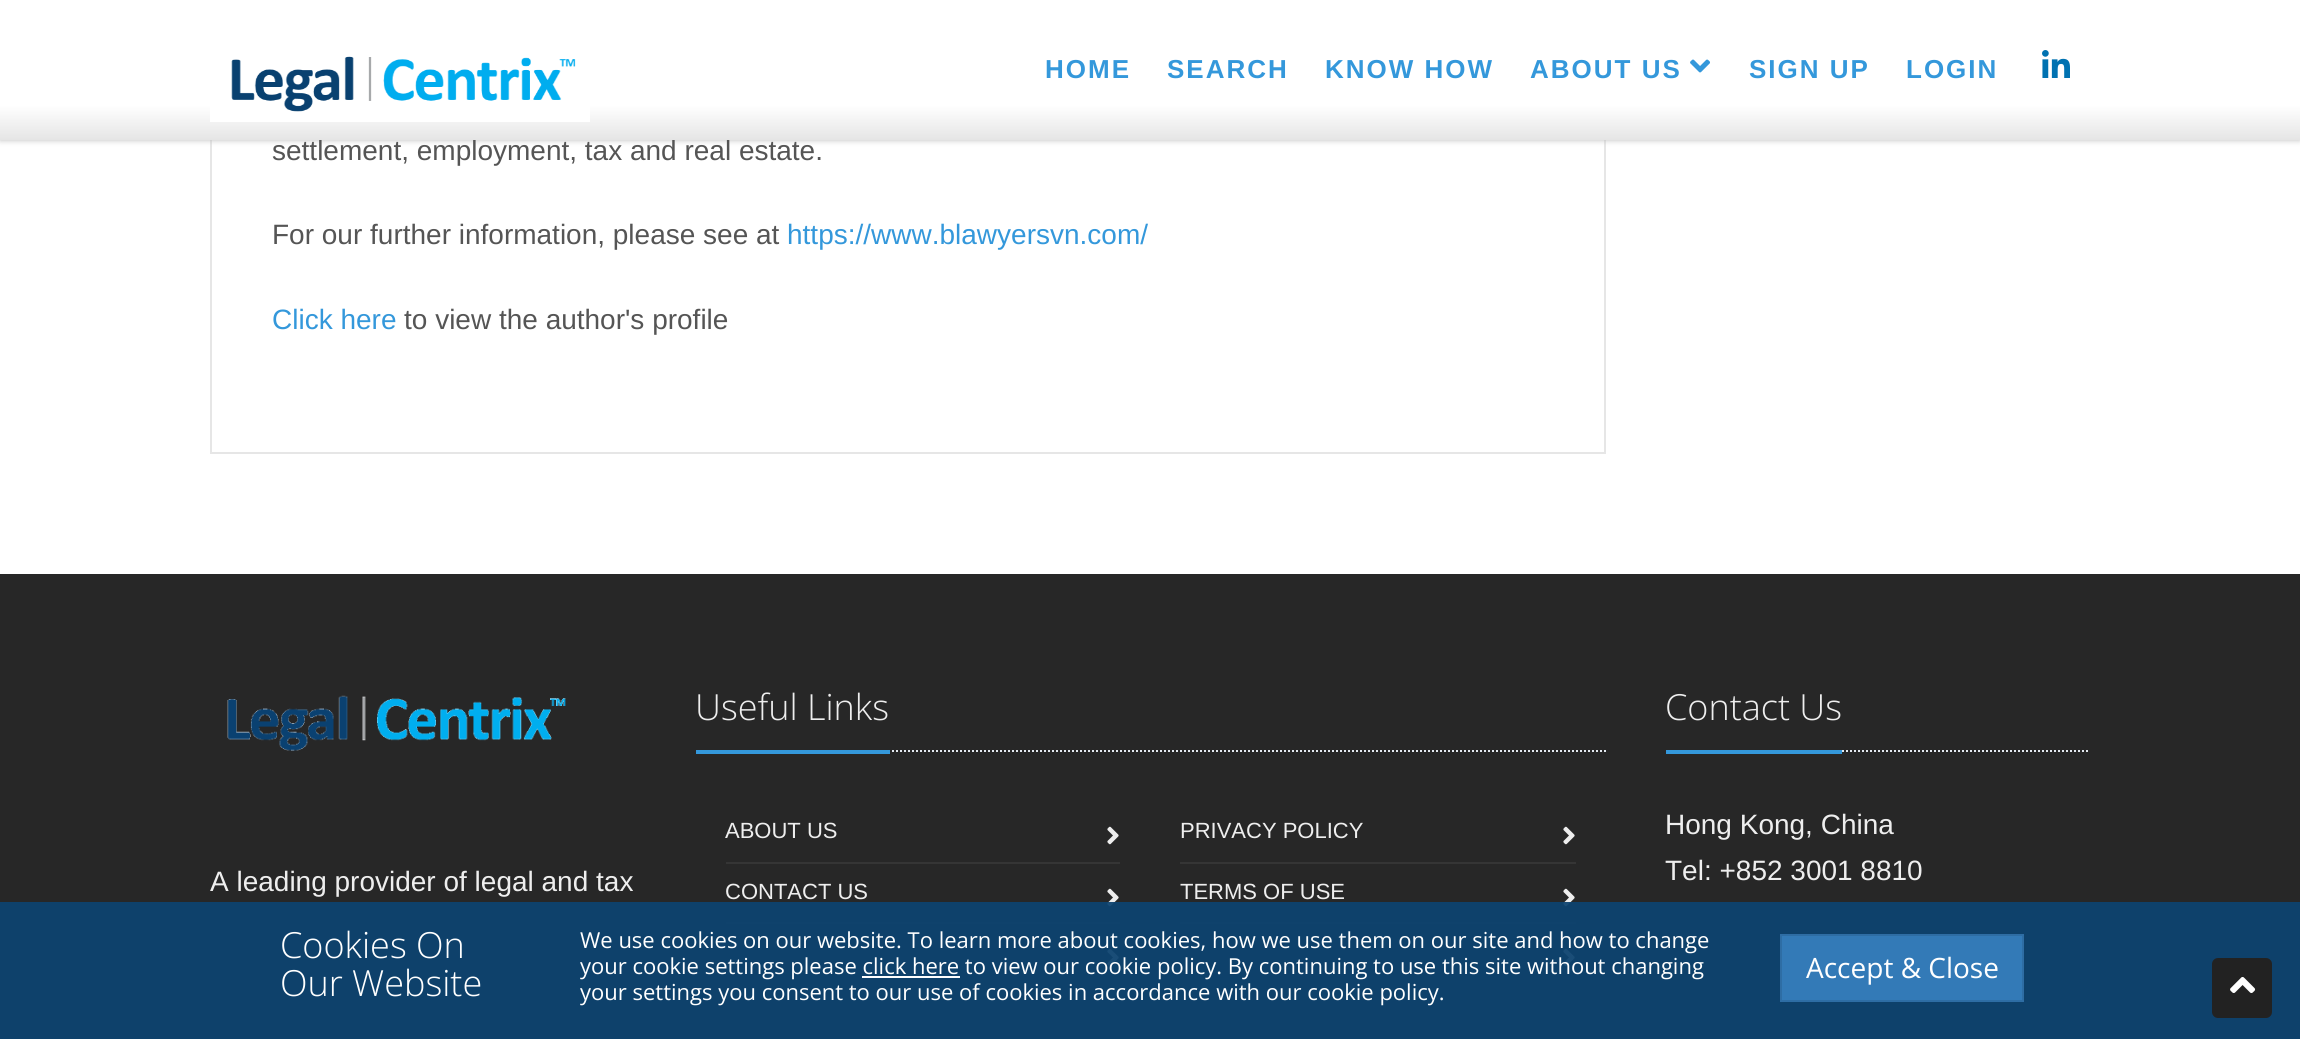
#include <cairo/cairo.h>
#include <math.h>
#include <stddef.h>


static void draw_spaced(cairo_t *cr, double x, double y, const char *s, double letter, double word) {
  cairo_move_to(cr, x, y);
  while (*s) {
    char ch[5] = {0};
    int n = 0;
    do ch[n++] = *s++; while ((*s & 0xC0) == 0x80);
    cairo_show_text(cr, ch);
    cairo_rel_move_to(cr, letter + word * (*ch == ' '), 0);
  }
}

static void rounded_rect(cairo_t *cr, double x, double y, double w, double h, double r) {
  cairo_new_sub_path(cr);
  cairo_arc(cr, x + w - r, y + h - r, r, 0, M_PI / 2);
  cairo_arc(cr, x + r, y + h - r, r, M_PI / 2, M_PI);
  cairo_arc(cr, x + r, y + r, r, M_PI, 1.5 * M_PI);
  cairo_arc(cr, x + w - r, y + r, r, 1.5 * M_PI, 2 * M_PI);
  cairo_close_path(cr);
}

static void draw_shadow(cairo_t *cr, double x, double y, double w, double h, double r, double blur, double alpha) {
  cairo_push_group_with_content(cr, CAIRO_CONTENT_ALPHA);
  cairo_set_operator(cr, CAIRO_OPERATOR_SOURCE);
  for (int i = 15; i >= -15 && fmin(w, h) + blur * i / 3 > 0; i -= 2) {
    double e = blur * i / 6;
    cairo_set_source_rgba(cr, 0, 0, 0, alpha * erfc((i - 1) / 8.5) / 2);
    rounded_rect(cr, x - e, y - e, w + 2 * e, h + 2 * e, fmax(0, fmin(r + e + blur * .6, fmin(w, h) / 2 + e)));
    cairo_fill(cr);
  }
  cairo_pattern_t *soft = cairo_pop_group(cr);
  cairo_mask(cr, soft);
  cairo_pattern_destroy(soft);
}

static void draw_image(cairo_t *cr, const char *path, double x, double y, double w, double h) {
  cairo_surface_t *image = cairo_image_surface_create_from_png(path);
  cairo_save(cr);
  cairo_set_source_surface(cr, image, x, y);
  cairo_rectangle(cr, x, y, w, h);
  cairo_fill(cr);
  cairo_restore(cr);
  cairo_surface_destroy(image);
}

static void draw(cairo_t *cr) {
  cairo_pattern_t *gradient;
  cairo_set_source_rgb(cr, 1, 1, 1);
  cairo_paint(cr);
  cairo_rectangle(cr, 211, -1, 1394, 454);
  cairo_set_source_rgb(cr, 230 / 255.0, 230 / 255.0, 230 / 255.0);
  cairo_stroke(cr);
  cairo_set_source_rgb(cr, 187 / 255.0, 187 / 255.0, 187 / 255.0);
  draw_shadow(cr, 0, 0, 2300, 140, 0, 3, 1);
  cairo_set_source_rgb(cr, 39 / 255.0, 39 / 255.0, 39 / 255.0);
  cairo_rectangle(cr, 0, 574, 2300, 465);
  cairo_fill(cr);
  draw_image(cr, "images/4.png", 227, 695, 339, 56);
  cairo_new_path(cr);
  cairo_move_to(cr, 696, 751);
  cairo_line_to(cr, 1606, 751);
  cairo_set_source_rgb(cr, 228 / 255.0, 233 / 255.0, 240 / 255.0);
  cairo_set_dash(cr, (double[]){2, 2}, 2, 0);
  cairo_stroke(cr);
  cairo_set_source_rgb(cr, 52 / 255.0, 152 / 255.0, 219 / 255.0);
  cairo_rectangle(cr, 696, 750, 194, 4);
  cairo_fill(cr);
  draw_image(cr, "images/5.png", 1107, 826, 12, 19);
  cairo_set_source_rgb(cr, 53 / 255.0, 53 / 255.0, 53 / 255.0);
  cairo_rectangle(cr, 726, 862, 394, 2);
  cairo_fill(cr);
  draw_image(cr, "images/5.png", 1107, 888, 12, 19);
  cairo_rectangle(cr, 726, 922, 394, 2);
  cairo_fill(cr);
  draw_image(cr, "images/5.png", 1107, 948, 12, 19);
  draw_image(cr, "images/5.png", 1563, 826, 12, 19);
  cairo_rectangle(cr, 1180, 862, 396, 2);
  cairo_fill(cr);
  draw_image(cr, "images/5.png", 1563, 888, 12, 19);
  cairo_rectangle(cr, 1180, 922, 396, 2);
  cairo_fill(cr);
  draw_image(cr, "images/5.png", 1563, 948, 12, 19);
  cairo_new_path(cr);
  cairo_move_to(cr, 1666, 751);
  cairo_line_to(cr, 2090, 751);
  cairo_set_source_rgb(cr, 228 / 255.0, 233 / 255.0, 240 / 255.0);
  cairo_stroke(cr);
  cairo_set_source_rgb(cr, 52 / 255.0, 152 / 255.0, 219 / 255.0);
  cairo_rectangle(cr, 1666, 750, 176, 4);
  cairo_fill(cr);
  cairo_set_source_rgba(cr, 13 / 255.0, 67 / 255.0, 112 / 255.0, 0.94);
  cairo_rectangle(cr, 0, 902, 2300, 137);
  cairo_fill(cr);
  cairo_set_source_rgb(cr, 1, 1, 1);
  cairo_rectangle(cr, 862, 976, 98, 2);
  cairo_fill(cr);
  cairo_set_source_rgb(cr, 51 / 255.0, 122 / 255.0, 183 / 255.0);
  cairo_rectangle(cr, 1781, 935, 242, 66);
  cairo_fill_preserve(cr);
  cairo_set_source_rgb(cr, 46 / 255.0, 109 / 255.0, 164 / 255.0);
  cairo_set_dash(cr, NULL, 0, 0);
  cairo_stroke(cr);
  cairo_set_source_rgb(cr, 34 / 255.0, 34 / 255.0, 34 / 255.0);
  rounded_rect(cr, 2212, 958, 60, 60, 6);
  cairo_fill(cr);
  draw_image(cr, "images/6.png", 2230, 977, 26, 16);
  cairo_select_font_face(cr, "Liberation Sans", CAIRO_FONT_SLANT_NORMAL, CAIRO_FONT_WEIGHT_NORMAL);
  cairo_set_font_size(cr, 28);
  cairo_set_source_rgb(cr, 85 / 255.0, 85 / 255.0, 85 / 255.0);
  cairo_move_to(cr, 272, 160);
  cairo_show_text(cr, "settlement, employment, tax and real estate.");
  gradient = cairo_pattern_create_linear(1150, 0, 1150, 140);
  cairo_pattern_add_color_stop_rgba(gradient, 0.75, 1, 1, 1, 1);
  cairo_pattern_add_color_stop_rgba(gradient, 1, 229 / 255.0, 229 / 255.0, 229 / 255.0, 1);
  cairo_set_source(cr, gradient);
  cairo_pattern_destroy(gradient);
  cairo_rectangle(cr, 0, 0, 2300, 140);
  cairo_fill(cr);
  draw_image(cr, "images/3.png", 2042, 50, 28, 28);
  cairo_select_font_face(cr, "Liberation Sans", CAIRO_FONT_SLANT_NORMAL, CAIRO_FONT_WEIGHT_BOLD);
  cairo_set_font_size(cr, 26);
  cairo_set_source_rgb(cr, 52 / 255.0, 152 / 255.0, 219 / 255.0);
  draw_spaced(cr, 1906, 78, "LOGIN", 2, 0);
  draw_spaced(cr, 1749, 78, "SIGN UP", 2, 0);
  draw_image(cr, "images/2.png", 1690, 59, 20, 14);
  draw_spaced(cr, 1530, 78, "ABOUT US", 2, 0);
  draw_spaced(cr, 1325, 78, "KNOW HOW", 2, 0);
  draw_spaced(cr, 1167, 78, "SEARCH", 2, 0);
  draw_spaced(cr, 1045, 78, "HOME", 2, 0);
  draw_image(cr, "images/1.png", 210, 56, 380, 66);
  cairo_select_font_face(cr, "Liberation Sans", CAIRO_FONT_SLANT_NORMAL, CAIRO_FONT_WEIGHT_NORMAL);
  cairo_set_font_size(cr, 28);
  cairo_set_source_rgb(cr, 85 / 255.0, 85 / 255.0, 85 / 255.0);
  cairo_move_to(cr, 272, 244);
  cairo_show_text(cr, "For our further information, please see at");
  cairo_set_source_rgb(cr, 52 / 255.0, 152 / 255.0, 219 / 255.0);
  cairo_move_to(cr, 787, 244);
  cairo_show_text(cr, "https://www.blawyersvn.com/");
  cairo_move_to(cr, 272, 329);
  cairo_show_text(cr, "Click here");
  cairo_set_source_rgb(cr, 85 / 255.0, 85 / 255.0, 85 / 255.0);
  cairo_move_to(cr, 404, 329);
  cairo_show_text(cr, "to view the author's profile");
  cairo_set_source_rgb(cr, 238 / 255.0, 238 / 255.0, 238 / 255.0);
  cairo_move_to(cr, 210, 891);
  cairo_show_text(cr, "A leading provider of legal and tax");
  cairo_select_font_face(cr, "Open Sans Light", CAIRO_FONT_SLANT_NORMAL, CAIRO_FONT_WEIGHT_NORMAL);
  cairo_set_font_size(cr, 36);
  cairo_move_to(cr, 695, 720);
  cairo_show_text(cr, "Useful Links");
  cairo_select_font_face(cr, "Liberation Sans", CAIRO_FONT_SLANT_NORMAL, CAIRO_FONT_WEIGHT_NORMAL);
  cairo_set_font_size(cr, 22);
  cairo_move_to(cr, 725, 838);
  cairo_show_text(cr, "ABOUT US");
  cairo_move_to(cr, 725, 899);
  cairo_show_text(cr, "CONTACT US");
  cairo_move_to(cr, 1180, 838);
  cairo_show_text(cr, "PRIVACY POLICY");
  cairo_move_to(cr, 1180, 899);
  cairo_show_text(cr, "TERMS OF USE");
  cairo_select_font_face(cr, "Open Sans Light", CAIRO_FONT_SLANT_NORMAL, CAIRO_FONT_WEIGHT_NORMAL);
  cairo_set_font_size(cr, 36);
  cairo_move_to(cr, 1665, 720);
  cairo_show_text(cr, "Contact Us");
  cairo_select_font_face(cr, "Liberation Sans", CAIRO_FONT_SLANT_NORMAL, CAIRO_FONT_WEIGHT_NORMAL);
  cairo_set_font_size(cr, 28);
  cairo_move_to(cr, 1665, 834);
  cairo_show_text(cr, "Hong Kong, China");
  cairo_move_to(cr, 1665, 880);
  cairo_show_text(cr, "Tel: +852 3001 8810");
  cairo_select_font_face(cr, "Open Sans Light", CAIRO_FONT_SLANT_NORMAL, CAIRO_FONT_WEIGHT_NORMAL);
  cairo_set_font_size(cr, 36);
  cairo_set_source_rgb(cr, 1, 1, 1);
  cairo_move_to(cr, 280, 958);
  cairo_show_text(cr, "Cookies On");
  cairo_move_to(cr, 280, 996);
  cairo_show_text(cr, "Our Website");
  cairo_select_font_face(cr, "Open Sans", CAIRO_FONT_SLANT_NORMAL, CAIRO_FONT_WEIGHT_NORMAL);
  cairo_set_font_size(cr, 22);
  cairo_move_to(cr, 580, 948);
  cairo_show_text(cr, "We use cookies on our website. To learn more about cookies, how we use them on our site and how to change");
  cairo_move_to(cr, 580, 974);
  cairo_show_text(cr, "your cookie settings please click here to view our cookie policy. By continuing to use this site without changing");
  cairo_move_to(cr, 580, 1000);
  cairo_show_text(cr, "your settings you consent to our use of cookies in accordance with our cookie policy.");
  cairo_set_font_size(cr, 28);
  cairo_move_to(cr, 1806, 978);
  cairo_show_text(cr, "Accept & Close");
}

int main(void) {
  cairo_surface_t *surface = cairo_image_surface_create(CAIRO_FORMAT_RGB24, 2300, 1039);
  cairo_t *cr = cairo_create(surface);
  cairo_font_options_t *options = cairo_font_options_create();
  cairo_font_options_set_hint_metrics(options, CAIRO_HINT_METRICS_OFF);
  cairo_font_options_set_hint_style(options, CAIRO_HINT_STYLE_NONE);
  cairo_set_font_options(cr, options);
  cairo_set_miter_limit(cr, 4);
  draw(cr);
  cairo_surface_write_to_png(surface, "out.png");
  cairo_font_options_destroy(options);
  cairo_destroy(cr);
  cairo_surface_destroy(surface);
  return 0;
}
